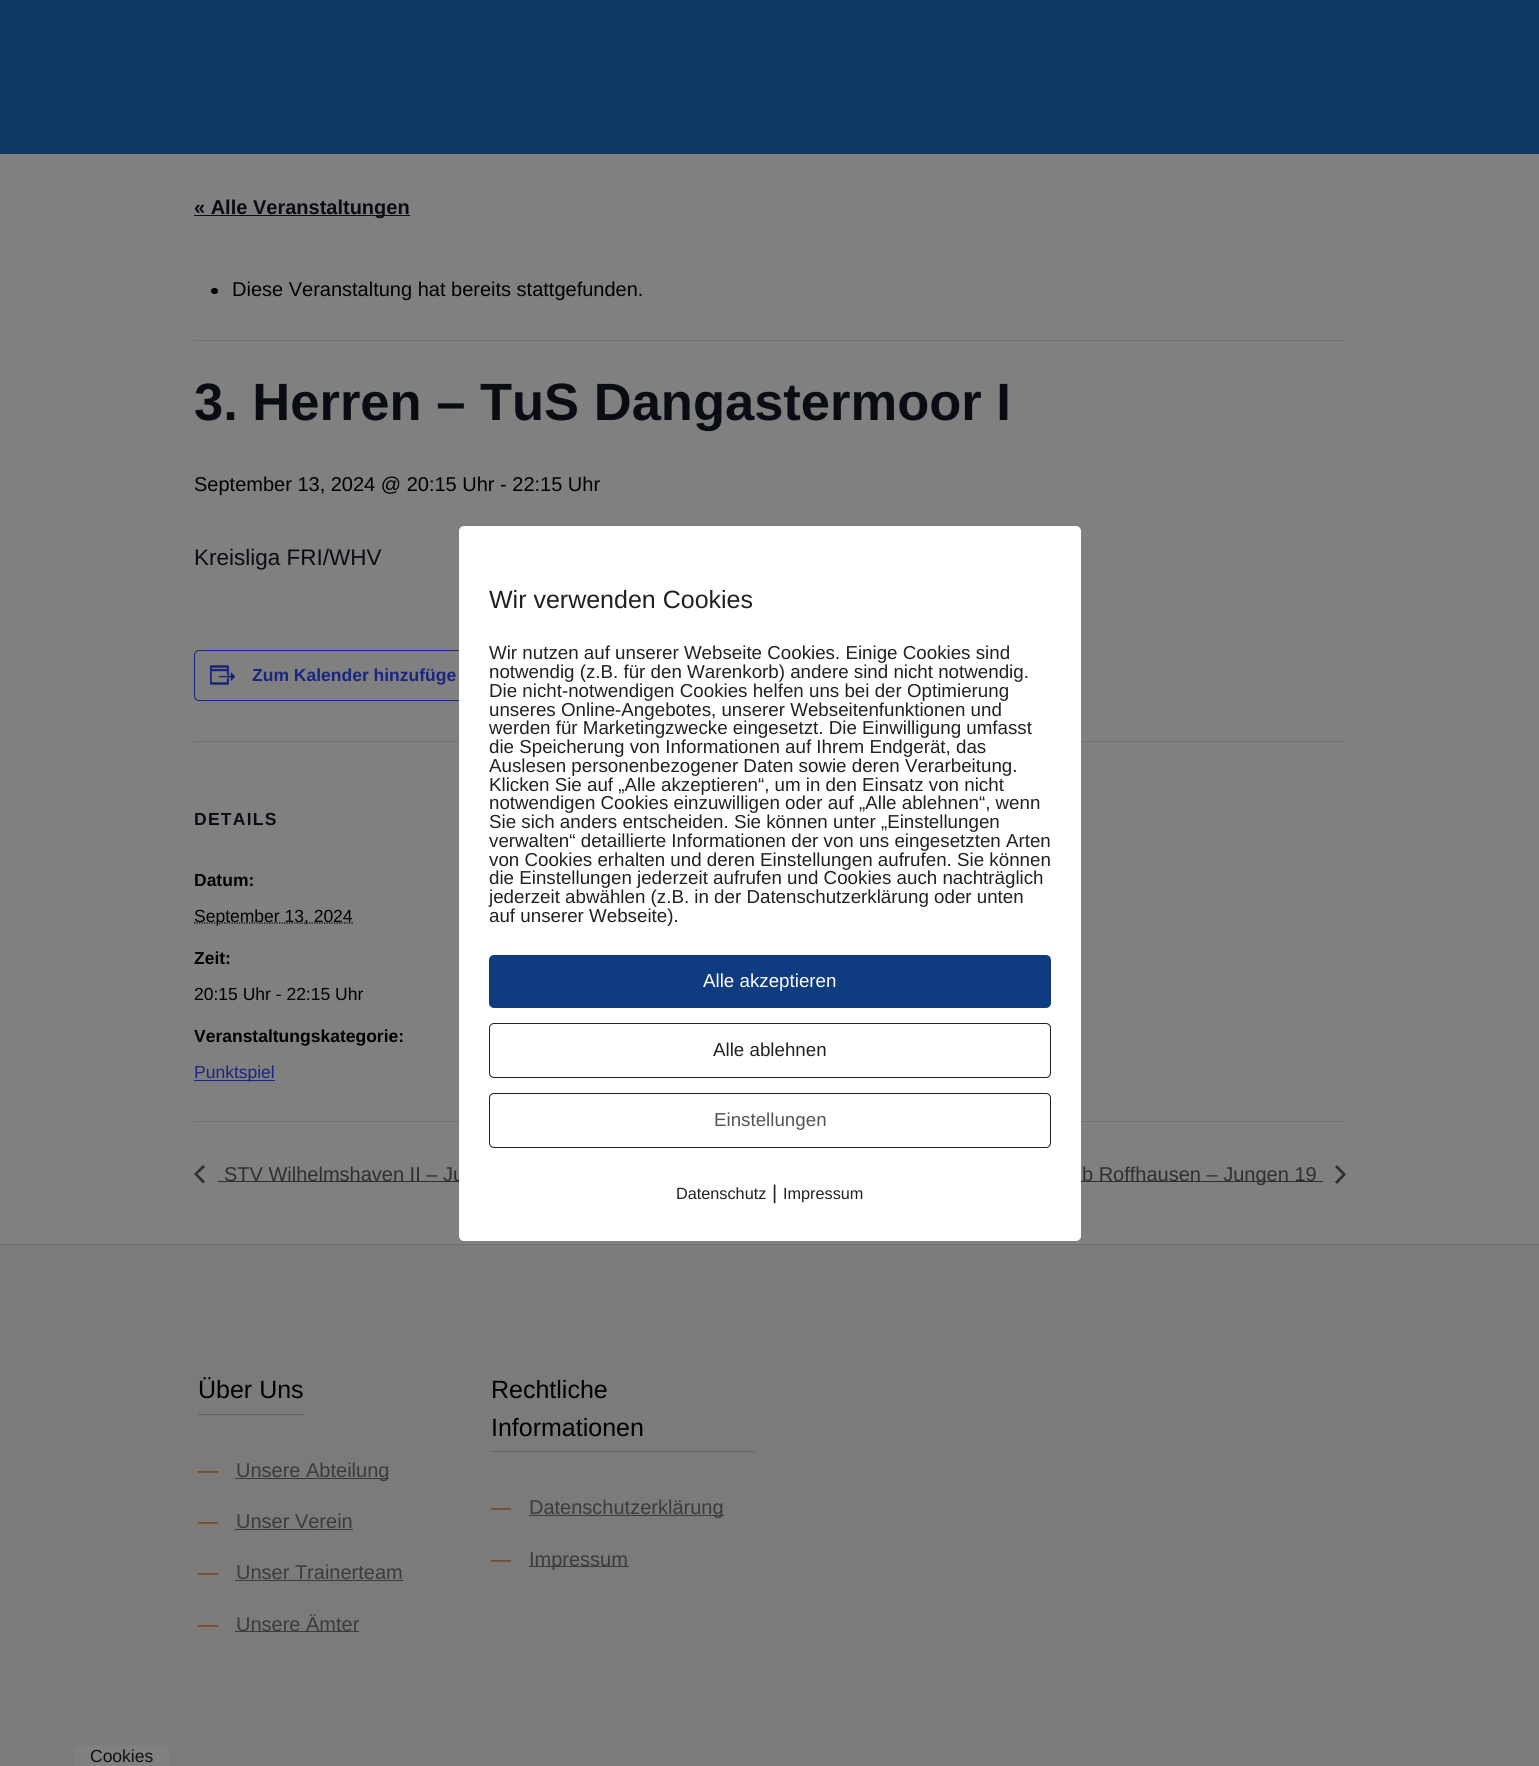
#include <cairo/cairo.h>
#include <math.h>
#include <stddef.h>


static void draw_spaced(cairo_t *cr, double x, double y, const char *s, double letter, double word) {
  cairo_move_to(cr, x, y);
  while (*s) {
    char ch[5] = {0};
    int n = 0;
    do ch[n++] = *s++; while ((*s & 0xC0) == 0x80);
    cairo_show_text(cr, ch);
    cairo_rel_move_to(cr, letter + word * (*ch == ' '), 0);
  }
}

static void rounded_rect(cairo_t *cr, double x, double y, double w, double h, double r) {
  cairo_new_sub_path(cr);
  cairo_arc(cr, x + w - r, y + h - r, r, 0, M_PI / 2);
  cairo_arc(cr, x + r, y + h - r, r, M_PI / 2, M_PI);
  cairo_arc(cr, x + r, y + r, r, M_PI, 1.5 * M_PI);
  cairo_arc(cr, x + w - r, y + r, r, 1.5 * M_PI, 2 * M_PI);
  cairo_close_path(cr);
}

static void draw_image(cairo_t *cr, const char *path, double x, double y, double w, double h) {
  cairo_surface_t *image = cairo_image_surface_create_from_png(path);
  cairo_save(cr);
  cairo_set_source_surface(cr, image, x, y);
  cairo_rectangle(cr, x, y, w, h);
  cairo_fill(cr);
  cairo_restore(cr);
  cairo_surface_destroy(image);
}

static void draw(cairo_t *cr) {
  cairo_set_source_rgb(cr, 128 / 255.0, 128 / 255.0, 128 / 255.0);
  cairo_paint(cr);
  cairo_set_source_rgb(cr, 16 / 255.0, 56 / 255.0, 101 / 255.0);
  cairo_rectangle(cr, 0, 0, 1539, 154);
  cairo_fill(cr);
  cairo_set_source_rgb(cr, 10 / 255.0, 12 / 255.0, 20 / 255.0);
  cairo_rectangle(cr, 194, 215, 216, 1);
  cairo_fill(cr);
  cairo_set_source_rgb(cr, 114 / 255.0, 114 / 255.0, 114 / 255.0);
  cairo_rectangle(cr, 194, 340, 1152, 1);
  cairo_fill(cr);
  cairo_set_source_rgb(cr, 0, 0, 0);
  rounded_rect(cr, 211, 288, 7, 6, 3);
  cairo_fill(cr);
  rounded_rect(cr, 194.5, 650.5, 320, 50, 4.5);
  cairo_set_source_rgb(cr, 26 / 255.0, 37 / 255.0, 128 / 255.0);
  cairo_set_line_width(cr, 1);
  cairo_stroke(cr);
  draw_image(cr, "images/1.png", 210, 665, 26, 20);
  cairo_set_source_rgb(cr, 114 / 255.0, 114 / 255.0, 114 / 255.0);
  cairo_rectangle(cr, 194, 741, 1152, 1);
  cairo_fill(cr);
  cairo_new_path(cr);
  cairo_move_to(cr, 194, 923);
  cairo_line_to(cr, 353, 923);
  cairo_set_source_rgb(cr, 0, 0, 0);
  cairo_set_line_width(cr, 1.2);
  cairo_set_dash(cr, (double[]){1.25, 1.25}, 2, 0);
  cairo_stroke(cr);
  cairo_set_source_rgb(cr, 26 / 255.0, 37 / 255.0, 128 / 255.0);
  cairo_rectangle(cr, 194, 1080, 81, 1);
  cairo_fill(cr);
  cairo_set_source_rgb(cr, 114 / 255.0, 114 / 255.0, 114 / 255.0);
  cairo_rectangle(cr, 194, 1121, 1152, 1);
  cairo_fill(cr);
  cairo_set_source_rgb(cr, 47 / 255.0, 47 / 255.0, 47 / 255.0);
  cairo_new_path(cr);
  cairo_move_to(cr, 205, 1181.5);
  cairo_line_to(cr, 203, 1183.5);
  cairo_line_to(cr, 194, 1174);
  cairo_line_to(cr, 203, 1165);
  cairo_line_to(cr, 205, 1167);
  cairo_line_to(cr, 197.5, 1174);
  cairo_close_path(cr);
  cairo_fill(cr);
  cairo_rectangle(cr, 218, 1181, 241, 1);
  cairo_fill(cr);
  cairo_rectangle(cr, 1081, 1181, 242, 1);
  cairo_fill(cr);
  cairo_new_path(cr);
  cairo_move_to(cr, 1335, 1167);
  cairo_line_to(cr, 1337, 1165);
  cairo_line_to(cr, 1346, 1174.5);
  cairo_line_to(cr, 1337, 1184);
  cairo_line_to(cr, 1335, 1182);
  cairo_line_to(cr, 1342.5, 1174.5);
  cairo_close_path(cr);
  cairo_fill(cr);
  cairo_set_source_rgb(cr, 124 / 255.0, 123 / 255.0, 121 / 255.0);
  cairo_rectangle(cr, 0, 1245, 1539, 521);
  cairo_fill(cr);
  cairo_set_source_rgb(cr, 111 / 255.0, 111 / 255.0, 109 / 255.0);
  cairo_rectangle(cr, 0, 1244, 1539, 1);
  cairo_fill(cr);
  cairo_set_source_rgb(cr, 99 / 255.0, 99 / 255.0, 97 / 255.0);
  cairo_rectangle(cr, 198, 1414, 105, 1);
  cairo_fill(cr);
  cairo_set_source_rgb(cr, 59 / 255.0, 59 / 255.0, 59 / 255.0);
  cairo_rectangle(cr, 235, 1478, 154, 1);
  cairo_fill(cr);
  cairo_rectangle(cr, 235, 1529, 118, 1);
  cairo_fill(cr);
  cairo_rectangle(cr, 235, 1580, 168, 1);
  cairo_fill(cr);
  cairo_rectangle(cr, 235, 1631, 124, 1);
  cairo_fill(cr);
  cairo_set_source_rgb(cr, 99 / 255.0, 99 / 255.0, 97 / 255.0);
  cairo_rectangle(cr, 491, 1451, 264, 1);
  cairo_fill(cr);
  cairo_set_source_rgb(cr, 59 / 255.0, 59 / 255.0, 59 / 255.0);
  cairo_rectangle(cr, 529, 1515, 195, 1);
  cairo_fill(cr);
  cairo_rectangle(cr, 529, 1566, 100, 1);
  cairo_fill(cr);
  cairo_set_source_rgb(cr, 128 / 255.0, 128 / 255.0, 128 / 255.0);
  cairo_new_path(cr);
  cairo_move_to(cr, 80, 1745);
  cairo_line_to(cr, 164, 1745);
  cairo_curve_to(cr, 167, 1745, 169, 1747, 169, 1750);
  cairo_line_to(cr, 169, 1766);
  cairo_line_to(cr, 75, 1766);
  cairo_line_to(cr, 75, 1750);
  cairo_curve_to(cr, 75, 1747, 77, 1745, 80, 1745);
  cairo_close_path(cr);
  cairo_fill(cr);
  cairo_select_font_face(cr, "Liberation Sans", CAIRO_FONT_SLANT_NORMAL, CAIRO_FONT_WEIGHT_BOLD);
  cairo_set_font_size(cr, 20);
  cairo_set_source_rgb(cr, 10 / 255.0, 12 / 255.0, 20 / 255.0);
  cairo_move_to(cr, 194, 214);
  cairo_show_text(cr, "« Alle Veranstaltungen");
  cairo_select_font_face(cr, "Liberation Sans", CAIRO_FONT_SLANT_NORMAL, CAIRO_FONT_WEIGHT_NORMAL);
  cairo_set_source_rgb(cr, 0, 0, 0);
  cairo_move_to(cr, 232, 296);
  cairo_show_text(cr, "Diese Veranstaltung hat bereits stattgefunden.");
  cairo_select_font_face(cr, "Liberation Sans", CAIRO_FONT_SLANT_NORMAL, CAIRO_FONT_WEIGHT_BOLD);
  cairo_set_font_size(cr, 52.5);
  cairo_set_source_rgb(cr, 10 / 255.0, 12 / 255.0, 20 / 255.0);
  cairo_move_to(cr, 194, 420);
  cairo_show_text(cr, "3. Herren – TuS Dangastermoor I");
  cairo_select_font_face(cr, "Liberation Sans", CAIRO_FONT_SLANT_NORMAL, CAIRO_FONT_WEIGHT_NORMAL);
  cairo_set_font_size(cr, 20);
  cairo_set_source_rgb(cr, 0, 0, 0);
  cairo_move_to(cr, 194, 491);
  cairo_show_text(cr, "September 13, 2024 @ 20:15 Uhr - 22:15 Uhr");
  cairo_set_font_size(cr, 22.5);
  cairo_set_source_rgb(cr, 10 / 255.0, 12 / 255.0, 20 / 255.0);
  cairo_move_to(cr, 194, 565);
  cairo_show_text(cr, "Kreisliga FRI/WHV");
  cairo_select_font_face(cr, "Liberation Sans", CAIRO_FONT_SLANT_NORMAL, CAIRO_FONT_WEIGHT_BOLD);
  cairo_set_font_size(cr, 17.5);
  cairo_set_source_rgb(cr, 26 / 255.0, 37 / 255.0, 128 / 255.0);
  cairo_move_to(cr, 252, 681);
  cairo_show_text(cr, "Zum Kalender hinzufüge");
  cairo_set_source_rgb(cr, 10 / 255.0, 12 / 255.0, 20 / 255.0);
  draw_spaced(cr, 194, 825, "DETAILS", 1.25, 0);
  cairo_set_source_rgb(cr, 0, 0, 0);
  cairo_move_to(cr, 194, 886);
  cairo_show_text(cr, "Datum:");
  cairo_select_font_face(cr, "Liberation Sans", CAIRO_FONT_SLANT_NORMAL, CAIRO_FONT_WEIGHT_NORMAL);
  cairo_move_to(cr, 194, 922);
  cairo_show_text(cr, "September 13, 2024");
  cairo_select_font_face(cr, "Liberation Sans", CAIRO_FONT_SLANT_NORMAL, CAIRO_FONT_WEIGHT_BOLD);
  cairo_move_to(cr, 194, 964);
  cairo_show_text(cr, "Zeit:");
  cairo_select_font_face(cr, "Liberation Sans", CAIRO_FONT_SLANT_NORMAL, CAIRO_FONT_WEIGHT_NORMAL);
  cairo_move_to(cr, 194, 1000);
  cairo_show_text(cr, "20:15 Uhr - 22:15 Uhr");
  cairo_select_font_face(cr, "Liberation Sans", CAIRO_FONT_SLANT_NORMAL, CAIRO_FONT_WEIGHT_BOLD);
  cairo_move_to(cr, 194, 1042);
  cairo_show_text(cr, "Veranstaltungskategorie:");
  cairo_select_font_face(cr, "Liberation Sans", CAIRO_FONT_SLANT_NORMAL, CAIRO_FONT_WEIGHT_NORMAL);
  cairo_set_source_rgb(cr, 26 / 255.0, 37 / 255.0, 128 / 255.0);
  cairo_move_to(cr, 194, 1078);
  cairo_show_text(cr, "Punktspiel");
  cairo_set_font_size(cr, 20);
  cairo_set_source_rgb(cr, 47 / 255.0, 47 / 255.0, 47 / 255.0);
  cairo_move_to(cr, 224, 1181);
  cairo_show_text(cr, "STV Wilhelmshaven II – Ju");
  cairo_move_to(cr, 1082, 1181);
  cairo_show_text(cr, "b Roffhausen – Jungen 19");
  cairo_set_font_size(cr, 25);
  cairo_set_source_rgb(cr, 0, 0, 0);
  cairo_move_to(cr, 198, 1398);
  cairo_show_text(cr, "Über Uns");
  cairo_set_font_size(cr, 20);
  cairo_set_source_rgb(cr, 106 / 255.0, 63 / 255.0, 28 / 255.0);
  cairo_move_to(cr, 198, 1477);
  cairo_show_text(cr, "—");
  cairo_set_source_rgb(cr, 59 / 255.0, 59 / 255.0, 59 / 255.0);
  cairo_move_to(cr, 236, 1477);
  cairo_show_text(cr, "Unsere Abteilung");
  cairo_set_source_rgb(cr, 106 / 255.0, 63 / 255.0, 28 / 255.0);
  cairo_move_to(cr, 198, 1528);
  cairo_show_text(cr, "—");
  cairo_set_source_rgb(cr, 59 / 255.0, 59 / 255.0, 59 / 255.0);
  cairo_move_to(cr, 236, 1528);
  cairo_show_text(cr, "Unser Verein");
  cairo_set_source_rgb(cr, 106 / 255.0, 63 / 255.0, 28 / 255.0);
  cairo_move_to(cr, 198, 1579);
  cairo_show_text(cr, "—");
  cairo_set_source_rgb(cr, 59 / 255.0, 59 / 255.0, 59 / 255.0);
  cairo_move_to(cr, 236, 1579);
  cairo_show_text(cr, "Unser Trainerteam");
  cairo_set_source_rgb(cr, 106 / 255.0, 63 / 255.0, 28 / 255.0);
  cairo_move_to(cr, 198, 1631);
  cairo_show_text(cr, "—");
  cairo_set_source_rgb(cr, 59 / 255.0, 59 / 255.0, 59 / 255.0);
  cairo_move_to(cr, 236, 1631);
  cairo_show_text(cr, "Unsere Ämter");
  cairo_set_font_size(cr, 25);
  cairo_set_source_rgb(cr, 0, 0, 0);
  cairo_move_to(cr, 491, 1398);
  cairo_show_text(cr, "Rechtliche");
  cairo_move_to(cr, 491, 1436);
  cairo_show_text(cr, "Informationen");
  cairo_set_font_size(cr, 20);
  cairo_set_source_rgb(cr, 106 / 255.0, 63 / 255.0, 28 / 255.0);
  cairo_move_to(cr, 491, 1514);
  cairo_show_text(cr, "—");
  cairo_set_source_rgb(cr, 59 / 255.0, 59 / 255.0, 59 / 255.0);
  cairo_move_to(cr, 529, 1514);
  cairo_show_text(cr, "Datenschutzerklärung");
  cairo_set_source_rgb(cr, 106 / 255.0, 63 / 255.0, 28 / 255.0);
  cairo_move_to(cr, 491, 1566);
  cairo_show_text(cr, "—");
  cairo_set_source_rgb(cr, 59 / 255.0, 59 / 255.0, 59 / 255.0);
  cairo_move_to(cr, 529, 1566);
  cairo_show_text(cr, "Impressum");
  cairo_set_source_rgb(cr, 1, 1, 1);
  rounded_rect(cr, 459, 526, 622, 715, 5);
  cairo_fill(cr);
  cairo_set_font_size(cr, 25);
  cairo_set_source_rgb(cr, 33 / 255.0, 33 / 255.0, 33 / 255.0);
  cairo_move_to(cr, 489, 608);
  cairo_show_text(cr, "Wir verwenden Cookies");
  cairo_set_font_size(cr, 18.75);
  cairo_move_to(cr, 489, 659);
  cairo_show_text(cr, "Wir nutzen auf unserer Webseite Cookies. Einige Cookies sind");
  cairo_move_to(cr, 489, 678);
  cairo_show_text(cr, "notwendig (z.B. für den Warenkorb) andere sind nicht notwendig.");
  cairo_move_to(cr, 489, 697);
  cairo_show_text(cr, "Die nicht-notwendigen Cookies helfen uns bei der Optimierung");
  cairo_move_to(cr, 489, 716);
  cairo_show_text(cr, "unseres Online-Angebotes, unserer Webseitenfunktionen und");
  cairo_move_to(cr, 489, 734);
  cairo_show_text(cr, "werden für Marketingzwecke eingesetzt. Die Einwilligung umfasst");
  cairo_move_to(cr, 489, 753);
  cairo_show_text(cr, "die Speicherung von Informationen auf Ihrem Endgerät, das");
  cairo_move_to(cr, 489, 772);
  cairo_show_text(cr, "Auslesen personenbezogener Daten sowie deren Verarbeitung.");
  cairo_move_to(cr, 489, 791);
  cairo_show_text(cr, "Klicken Sie auf „Alle akzeptieren“, um in den Einsatz von nicht");
  cairo_move_to(cr, 489, 809);
  cairo_show_text(cr, "notwendigen Cookies einzuwilligen oder auf „Alle ablehnen“, wenn");
  cairo_move_to(cr, 489, 828);
  cairo_show_text(cr, "Sie sich anders entscheiden. Sie können unter „Einstellungen");
  cairo_move_to(cr, 489, 847);
  cairo_show_text(cr, "verwalten“ detaillierte Informationen der von uns eingesetzten Arten");
  cairo_move_to(cr, 489, 866);
  cairo_show_text(cr, "von Cookies erhalten und deren Einstellungen aufrufen. Sie können");
  cairo_move_to(cr, 489, 884);
  cairo_show_text(cr, "die Einstellungen jederzeit aufrufen und Cookies auch nachträglich");
  cairo_move_to(cr, 489, 903);
  cairo_show_text(cr, "jederzeit abwählen (z.B. in der Datenschutzerklärung oder unten");
  cairo_move_to(cr, 489, 922);
  cairo_show_text(cr, "auf unserer Webseite).");
  cairo_set_source_rgb(cr, 15 / 255.0, 60 / 255.0, 128 / 255.0);
  rounded_rect(cr, 489, 955, 562, 53, 5);
  cairo_fill(cr);
  cairo_set_source_rgb(cr, 1, 1, 1);
  cairo_move_to(cr, 703, 987);
  cairo_show_text(cr, "Alle akzeptieren");
  rounded_rect(cr, 489.5, 1023.5, 561, 54, 4.5);
  cairo_set_source_rgb(cr, 33 / 255.0, 33 / 255.0, 33 / 255.0);
  cairo_set_line_width(cr, 1);
  cairo_set_dash(cr, NULL, 0, 0);
  cairo_stroke(cr);
  cairo_move_to(cr, 713, 1056);
  cairo_show_text(cr, "Alle ablehnen");
  rounded_rect(cr, 489.5, 1093.5, 561, 54, 4.5);
  cairo_stroke(cr);
  cairo_set_source_rgb(cr, 85 / 255.0, 85 / 255.0, 85 / 255.0);
  cairo_move_to(cr, 714, 1126);
  cairo_show_text(cr, "Einstellungen");
  cairo_set_font_size(cr, 16.25);
  cairo_set_source_rgb(cr, 33 / 255.0, 33 / 255.0, 33 / 255.0);
  cairo_move_to(cr, 676, 1199);
  cairo_show_text(cr, "Datenschutz");
  cairo_set_font_size(cr, 20);
  cairo_move_to(cr, 772, 1199);
  cairo_show_text(cr, "|");
  cairo_set_font_size(cr, 16.25);
  cairo_move_to(cr, 783, 1199);
  cairo_show_text(cr, "Impressum");
  cairo_set_font_size(cr, 17.5);
  cairo_set_source_rgb(cr, 17 / 255.0, 17 / 255.0, 17 / 255.0);
  cairo_move_to(cr, 90, 1762);
  cairo_show_text(cr, "Cookies");
}

int main(void) {
  cairo_surface_t *surface = cairo_image_surface_create(CAIRO_FORMAT_RGB24, 1539, 1766);
  cairo_t *cr = cairo_create(surface);
  cairo_font_options_t *options = cairo_font_options_create();
  cairo_font_options_set_hint_metrics(options, CAIRO_HINT_METRICS_OFF);
  cairo_font_options_set_hint_style(options, CAIRO_HINT_STYLE_NONE);
  cairo_set_font_options(cr, options);
  cairo_set_miter_limit(cr, 4);
  draw(cr);
  cairo_surface_write_to_png(surface, "out.png");
  cairo_font_options_destroy(options);
  cairo_destroy(cr);
  cairo_surface_destroy(surface);
  return 0;
}
